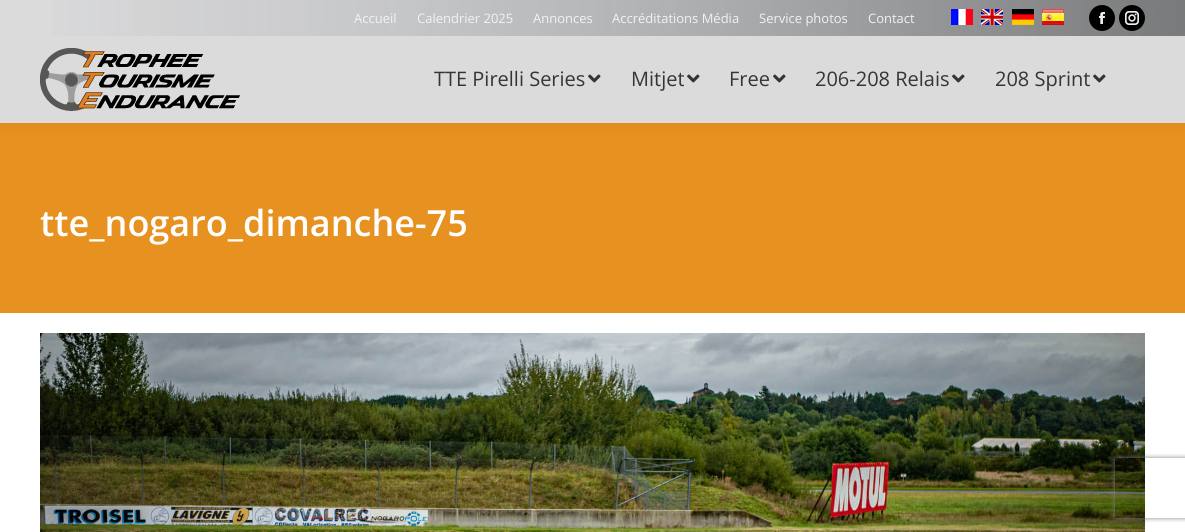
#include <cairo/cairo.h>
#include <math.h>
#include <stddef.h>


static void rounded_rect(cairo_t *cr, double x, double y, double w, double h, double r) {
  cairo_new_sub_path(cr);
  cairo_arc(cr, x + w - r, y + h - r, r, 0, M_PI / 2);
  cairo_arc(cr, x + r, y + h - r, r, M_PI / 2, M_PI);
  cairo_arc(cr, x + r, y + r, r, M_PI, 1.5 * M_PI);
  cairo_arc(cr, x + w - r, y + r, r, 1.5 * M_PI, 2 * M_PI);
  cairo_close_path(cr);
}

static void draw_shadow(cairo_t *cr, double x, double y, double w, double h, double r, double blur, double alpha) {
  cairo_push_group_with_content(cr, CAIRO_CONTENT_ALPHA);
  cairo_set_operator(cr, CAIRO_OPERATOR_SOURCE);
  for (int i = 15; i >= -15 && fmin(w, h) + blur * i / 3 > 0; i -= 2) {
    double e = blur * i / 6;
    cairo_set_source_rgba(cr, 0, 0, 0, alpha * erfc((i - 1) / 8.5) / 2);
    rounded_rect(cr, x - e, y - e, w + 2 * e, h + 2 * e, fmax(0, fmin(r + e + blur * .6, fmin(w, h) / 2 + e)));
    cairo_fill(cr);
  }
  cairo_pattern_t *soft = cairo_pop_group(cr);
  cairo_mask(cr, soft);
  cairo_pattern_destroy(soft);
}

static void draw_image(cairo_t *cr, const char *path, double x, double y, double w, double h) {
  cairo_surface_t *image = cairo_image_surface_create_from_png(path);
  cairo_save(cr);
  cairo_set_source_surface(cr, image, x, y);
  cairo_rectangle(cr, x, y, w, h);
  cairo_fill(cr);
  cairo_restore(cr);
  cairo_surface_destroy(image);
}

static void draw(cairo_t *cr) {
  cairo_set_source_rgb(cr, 1, 1, 1);
  cairo_paint(cr);
  cairo_set_source_rgb(cr, 231 / 255.0, 145 / 255.0, 32 / 255.0);
  cairo_rectangle(cr, 0, 123, 1185, 190);
  cairo_fill(cr);
  cairo_set_source_rgb(cr, 0, 0, 0);
  draw_shadow(cr, -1, -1, 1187, 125, 0, 7.5, 0.07);
  cairo_set_source_rgb(cr, 220 / 255.0, 219 / 255.0, 219 / 255.0);
  cairo_rectangle(cr, 0, 0, 1185, 123);
  cairo_fill(cr);
  draw_image(cr, "images/1.png", 52, 0, 1133, 36);
  draw_image(cr, "images/2.png", 951, 9, 22, 16);
  draw_image(cr, "images/3.png", 981, 9, 22, 16);
  draw_image(cr, "images/4.png", 1012, 9, 22, 16);
  draw_image(cr, "images/5.png", 1042, 9, 22, 16);
  cairo_set_source_rgb(cr, 0, 0, 0);
  cairo_arc(cr, 1102, 18, 13, 0, 2 * M_PI);
  cairo_fill(cr);
  draw_image(cr, "images/6.png", 1099, 12, 6, 12);
  cairo_arc(cr, 1132, 18, 13, 0, 2 * M_PI);
  cairo_fill(cr);
  draw_image(cr, "images/7.png", 1125, 11, 14, 14);
  draw_image(cr, "images/8.png", 40, 48, 200, 63);
  draw_image(cr, "images/9.png", 588, 74, 13, 9);
  draw_image(cr, "images/9.png", 687, 74, 13, 9);
  draw_image(cr, "images/9.png", 773, 74, 13, 9);
  draw_image(cr, "images/9.png", 952, 74, 13, 9);
  draw_image(cr, "images/9.png", 1093, 74, 13, 9);
  draw_image(cr, "images/10.png", 40, 333, 1105, 199);
  cairo_save(cr);
  cairo_set_fill_rule(cr, CAIRO_FILL_RULE_EVEN_ODD);
  cairo_new_path(cr);
  cairo_move_to(cr, 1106, 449);
  cairo_line_to(cr, 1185, 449);
  cairo_line_to(cr, 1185, 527);
  cairo_line_to(cr, 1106, 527);
  cairo_close_path(cr);
  cairo_move_to(cr, 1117, 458);
  cairo_line_to(cr, 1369, 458);
  cairo_curve_to(cr, 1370, 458, 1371, 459, 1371, 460);
  cairo_line_to(cr, 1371, 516);
  cairo_curve_to(cr, 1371, 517, 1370, 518, 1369, 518);
  cairo_line_to(cr, 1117, 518);
  cairo_curve_to(cr, 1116, 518, 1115, 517, 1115, 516);
  cairo_line_to(cr, 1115, 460);
  cairo_curve_to(cr, 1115, 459, 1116, 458, 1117, 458);
  cairo_close_path(cr);
  cairo_clip(cr);
  cairo_set_source_rgb(cr, 128 / 255.0, 128 / 255.0, 128 / 255.0);
  draw_shadow(cr, 1115, 458, 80, 60, 2, 2.5, 1);
  cairo_restore(cr);
  cairo_select_font_face(cr, "Open Sans", CAIRO_FONT_SLANT_NORMAL, CAIRO_FONT_WEIGHT_NORMAL);
  cairo_set_font_size(cr, 13);
  cairo_set_source_rgb(cr, 239 / 255.0, 243 / 255.0, 244 / 255.0);
  cairo_move_to(cr, 354, 23);
  cairo_show_text(cr, "Accueil");
  cairo_move_to(cr, 417, 23);
  cairo_show_text(cr, "Calendrier 2025");
  cairo_move_to(cr, 533, 23);
  cairo_show_text(cr, "Annonces");
  cairo_move_to(cr, 612, 23);
  cairo_show_text(cr, "Accréditations Média");
  cairo_move_to(cr, 759, 23);
  cairo_show_text(cr, "Service photos");
  cairo_move_to(cr, 868, 23);
  cairo_show_text(cr, "Contact");
  cairo_set_font_size(cr, 20);
  cairo_set_source_rgb(cr, 53 / 255.0, 53 / 255.0, 53 / 255.0);
  cairo_move_to(cr, 434, 86);
  cairo_show_text(cr, "TTE Pirelli Series");
  cairo_move_to(cr, 631, 86);
  cairo_show_text(cr, "Mitjet");
  cairo_move_to(cr, 729, 86);
  cairo_show_text(cr, "Free");
  cairo_move_to(cr, 815, 86);
  cairo_show_text(cr, "206-208 Relais");
  cairo_move_to(cr, 995, 86);
  cairo_show_text(cr, "208 Sprint");
  cairo_select_font_face(cr, "Open Sans SemiBold", CAIRO_FONT_SLANT_NORMAL, CAIRO_FONT_WEIGHT_NORMAL);
  cairo_set_font_size(cr, 36);
  cairo_set_source_rgb(cr, 1, 1, 1);
  cairo_move_to(cr, 40, 236);
  cairo_show_text(cr, "tte_nogaro_dimanche-75");
}

int main(void) {
  cairo_surface_t *surface = cairo_image_surface_create(CAIRO_FORMAT_RGB24, 1185, 532);
  cairo_t *cr = cairo_create(surface);
  cairo_font_options_t *options = cairo_font_options_create();
  cairo_font_options_set_hint_metrics(options, CAIRO_HINT_METRICS_OFF);
  cairo_font_options_set_hint_style(options, CAIRO_HINT_STYLE_NONE);
  cairo_set_font_options(cr, options);
  cairo_set_miter_limit(cr, 4);
  draw(cr);
  cairo_surface_write_to_png(surface, "out.png");
  cairo_font_options_destroy(options);
  cairo_destroy(cr);
  cairo_surface_destroy(surface);
  return 0;
}
